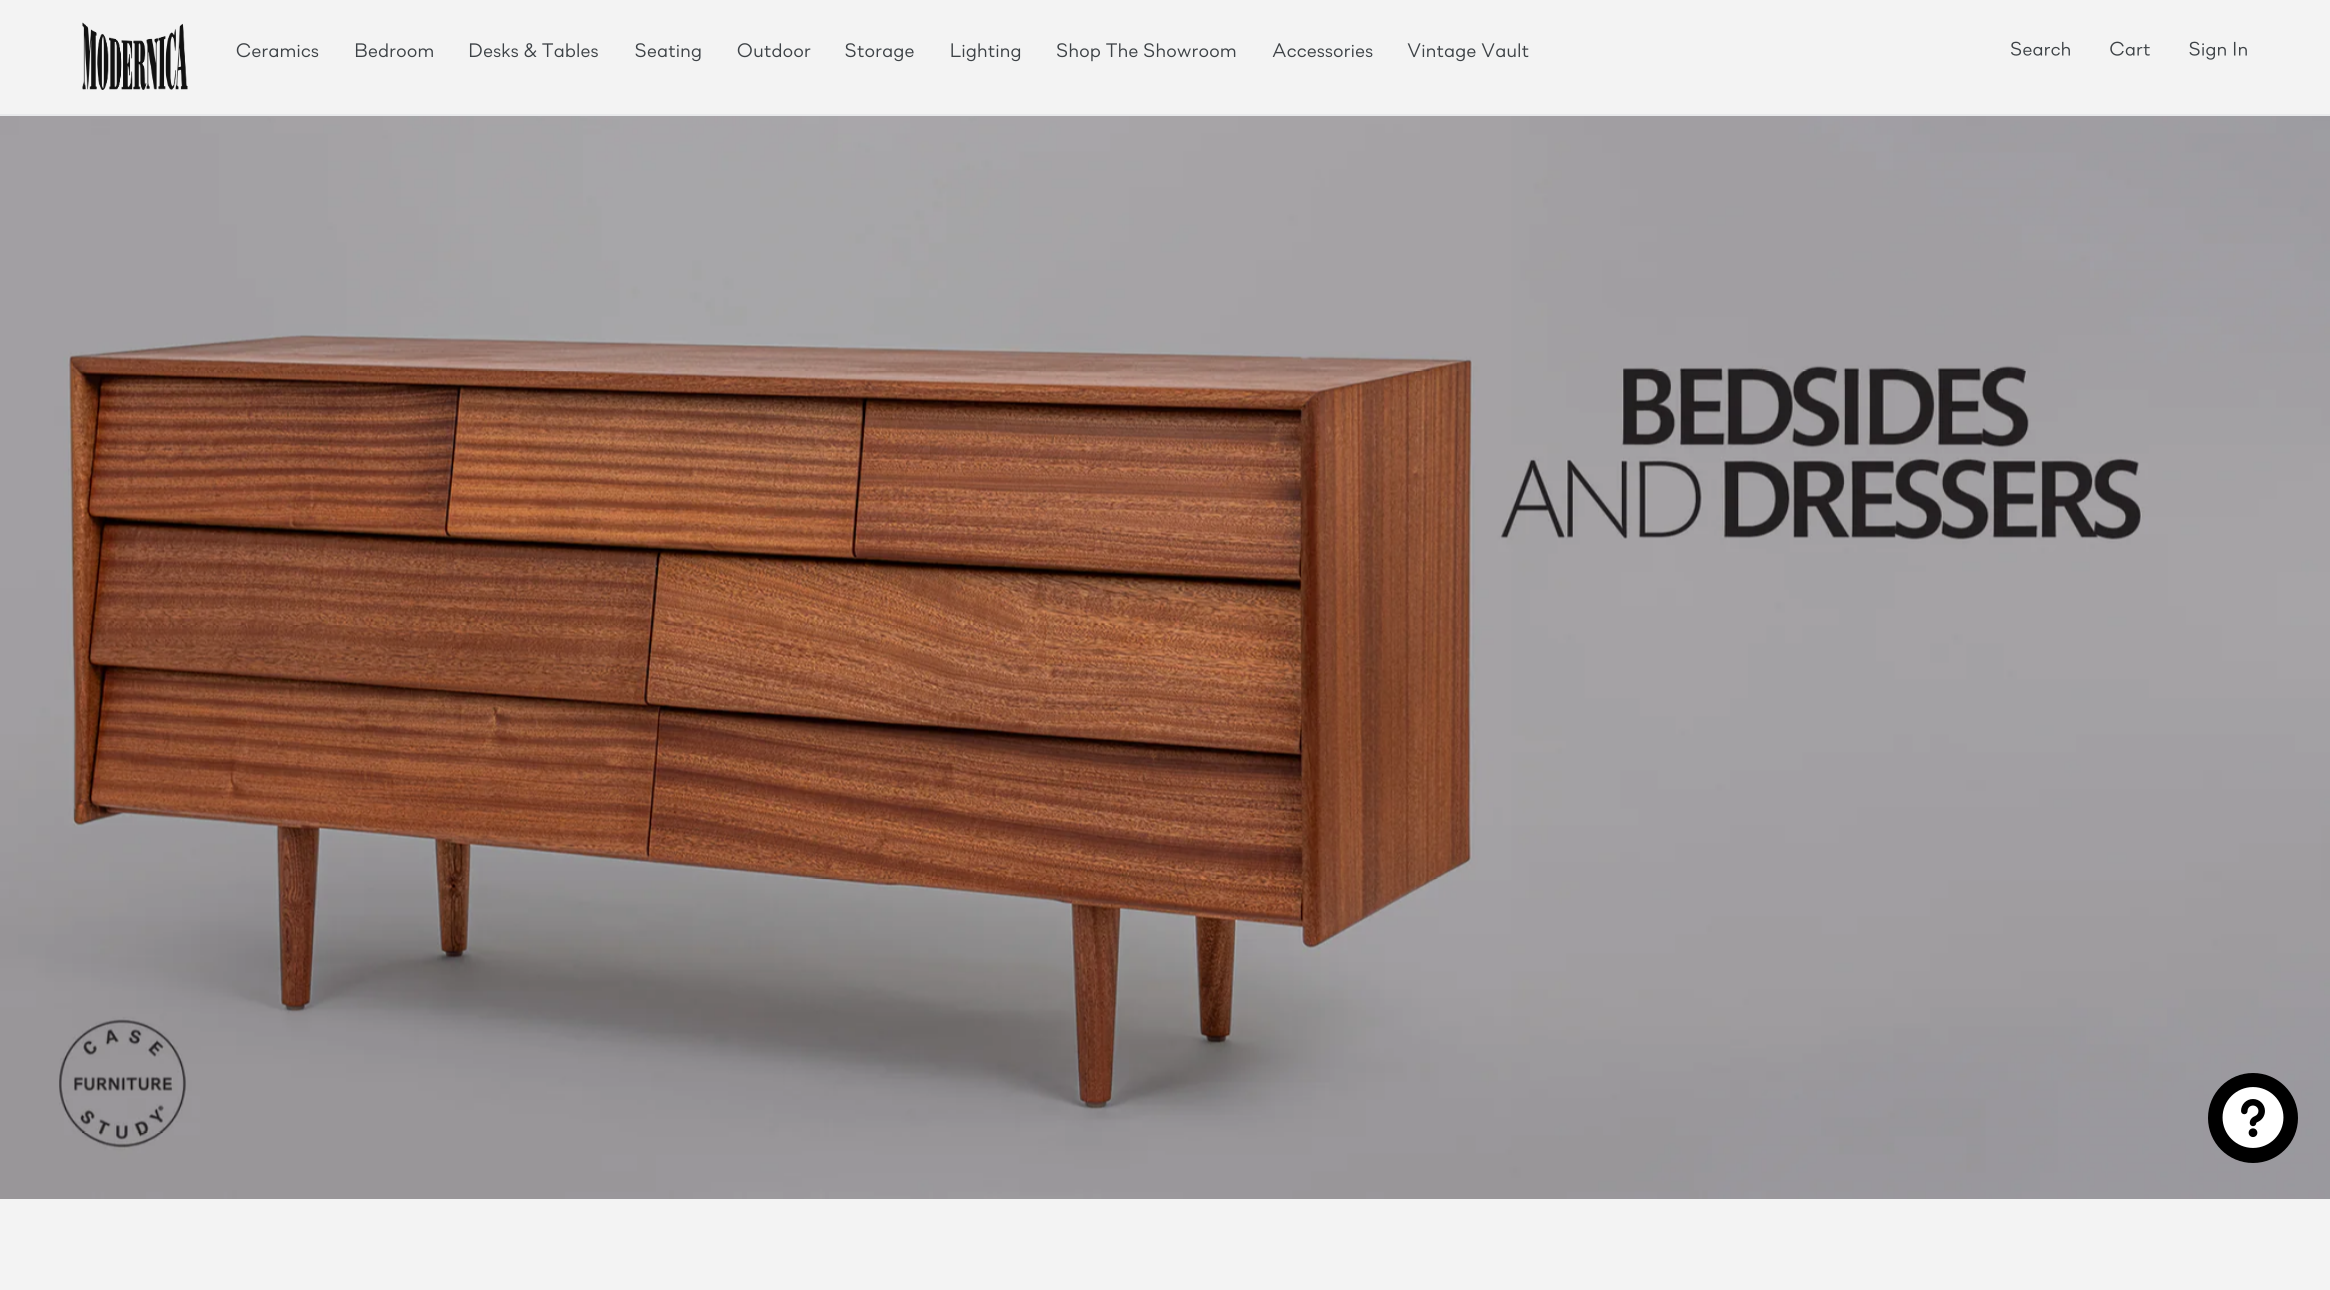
#include <cairo/cairo.h>
#include <math.h>
#include <stddef.h>


static void draw_image(cairo_t *cr, const char *path, double x, double y, double w, double h) {
  cairo_surface_t *image = cairo_image_surface_create_from_png(path);
  cairo_save(cr);
  cairo_set_source_surface(cr, image, x, y);
  cairo_rectangle(cr, x, y, w, h);
  cairo_fill(cr);
  cairo_restore(cr);
  cairo_surface_destroy(image);
}

static void draw(cairo_t *cr) {
  cairo_set_source_rgb(cr, 243 / 255.0, 243 / 255.0, 243 / 255.0);
  cairo_paint(cr);
  cairo_set_source_rgb(cr, 232 / 255.0, 233 / 255.0, 235 / 255.0);
  cairo_rectangle(cr, 0, 114, 2330, 2);
  cairo_fill(cr);
  draw_image(cr, "images/1.png", 82, 22, 106, 68);
  draw_image(cr, "images/2.png", 236, 43, 83, 15);
  draw_image(cr, "images/3.png", 355, 43, 78, 15);
  draw_image(cr, "images/4.png", 469, 43, 129, 15);
  draw_image(cr, "images/5.png", 635, 43, 66, 19);
  draw_image(cr, "images/6.png", 737, 43, 74, 15);
  draw_image(cr, "images/7.png", 845, 43, 69, 19);
  draw_image(cr, "images/8.png", 951, 43, 70, 19);
  draw_image(cr, "images/9.png", 1057, 43, 179, 19);
  draw_image(cr, "images/10.png", 1272, 43, 101, 15);
  draw_image(cr, "images/11.png", 1407, 43, 122, 19);
  draw_image(cr, "images/12.png", 2011, 41, 59, 15);
  draw_image(cr, "images/13.png", 2110, 41, 40, 15);
  draw_image(cr, "images/14.png", 2189, 41, 58, 19);
  draw_image(cr, "images/15.png", 0, 116, 2330, 1083);
  cairo_set_source_rgb(cr, 0, 0, 0);
  cairo_arc(cr, 2253, 1118, 45, 0, 2 * M_PI);
  cairo_fill(cr);
  draw_image(cr, "images/16.png", 2222, 1087, 62, 61);
}

int main(void) {
  cairo_surface_t *surface = cairo_image_surface_create(CAIRO_FORMAT_RGB24, 2330, 1290);
  cairo_t *cr = cairo_create(surface);
  cairo_font_options_t *options = cairo_font_options_create();
  cairo_font_options_set_hint_metrics(options, CAIRO_HINT_METRICS_OFF);
  cairo_font_options_set_hint_style(options, CAIRO_HINT_STYLE_NONE);
  cairo_set_font_options(cr, options);
  cairo_set_miter_limit(cr, 4);
  draw(cr);
  cairo_surface_write_to_png(surface, "out.png");
  cairo_font_options_destroy(options);
  cairo_destroy(cr);
  cairo_surface_destroy(surface);
  return 0;
}
